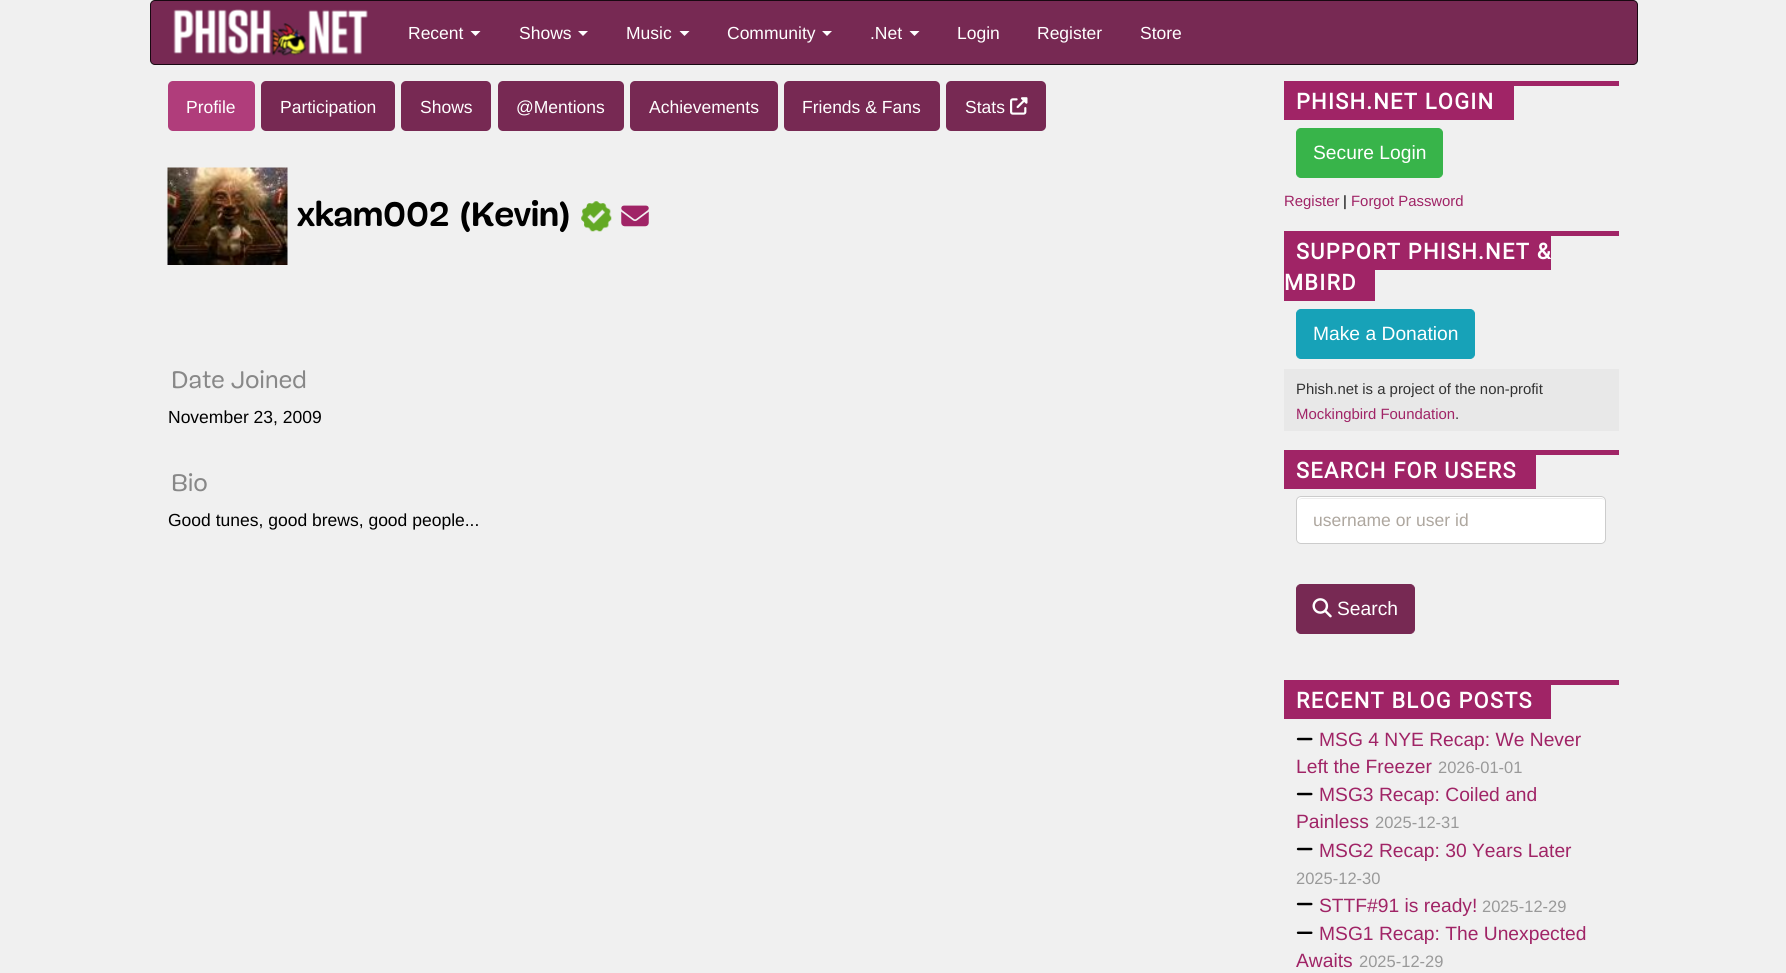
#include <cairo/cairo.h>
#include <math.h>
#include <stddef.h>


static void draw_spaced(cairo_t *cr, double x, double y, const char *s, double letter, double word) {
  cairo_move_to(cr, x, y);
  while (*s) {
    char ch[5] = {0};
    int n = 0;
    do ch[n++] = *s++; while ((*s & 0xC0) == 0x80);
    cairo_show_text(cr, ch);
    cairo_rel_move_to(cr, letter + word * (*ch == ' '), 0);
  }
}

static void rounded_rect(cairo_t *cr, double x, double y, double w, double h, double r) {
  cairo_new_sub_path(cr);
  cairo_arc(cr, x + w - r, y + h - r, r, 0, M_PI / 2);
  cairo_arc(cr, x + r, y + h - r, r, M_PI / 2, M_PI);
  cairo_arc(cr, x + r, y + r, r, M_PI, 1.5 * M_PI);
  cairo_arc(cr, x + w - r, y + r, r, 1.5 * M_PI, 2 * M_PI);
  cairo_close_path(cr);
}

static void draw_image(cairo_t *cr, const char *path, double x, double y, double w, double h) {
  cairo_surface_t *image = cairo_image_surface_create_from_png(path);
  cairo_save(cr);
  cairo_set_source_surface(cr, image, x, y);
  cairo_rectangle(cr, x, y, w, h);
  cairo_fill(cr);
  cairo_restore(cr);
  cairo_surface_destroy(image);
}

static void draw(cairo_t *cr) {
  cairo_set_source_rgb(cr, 240 / 255.0, 240 / 255.0, 240 / 255.0);
  cairo_paint(cr);
  cairo_set_source_rgb(cr, 119 / 255.0, 41 / 255.0, 83 / 255.0);
  rounded_rect(cr, 150.5, 0.5, 1487, 64, 4.5);
  cairo_fill_preserve(cr);
  cairo_set_source_rgb(cr, 24 / 255.0, 8 / 255.0, 17 / 255.0);
  cairo_set_line_width(cr, 1);
  cairo_stroke(cr);
  draw_image(cr, "images/1.png", 173, 9, 195, 47);
  cairo_set_source_rgb(cr, 1, 1, 1);
  cairo_new_path(cr);
  cairo_move_to(cr, 470.5, 31);
  cairo_line_to(cr, 480.5, 31);
  cairo_line_to(cr, 475.5, 36);
  cairo_close_path(cr);
  cairo_fill(cr);
  cairo_new_path(cr);
  cairo_move_to(cr, 578, 31);
  cairo_line_to(cr, 588, 31);
  cairo_line_to(cr, 583, 36);
  cairo_close_path(cr);
  cairo_fill(cr);
  cairo_new_path(cr);
  cairo_move_to(cr, 679.5, 31);
  cairo_line_to(cr, 689.5, 31);
  cairo_line_to(cr, 684.5, 36);
  cairo_close_path(cr);
  cairo_fill(cr);
  cairo_new_path(cr);
  cairo_move_to(cr, 822, 31);
  cairo_line_to(cr, 832, 31);
  cairo_line_to(cr, 827, 36);
  cairo_close_path(cr);
  cairo_fill(cr);
  cairo_new_path(cr);
  cairo_move_to(cr, 909.5, 31);
  cairo_line_to(cr, 919.5, 31);
  cairo_line_to(cr, 914.5, 36);
  cairo_close_path(cr);
  cairo_fill(cr);
  cairo_set_source_rgb(cr, 176 / 255.0, 61 / 255.0, 123 / 255.0);
  rounded_rect(cr, 168, 81, 87, 50, 5);
  cairo_fill(cr);
  cairo_set_source_rgb(cr, 119 / 255.0, 41 / 255.0, 83 / 255.0);
  rounded_rect(cr, 261, 81, 134, 50, 5);
  cairo_fill(cr);
  rounded_rect(cr, 401, 81, 90, 50, 5);
  cairo_fill(cr);
  rounded_rect(cr, 498, 81, 126, 50, 5);
  cairo_fill(cr);
  rounded_rect(cr, 630, 81, 148, 50, 5);
  cairo_fill(cr);
  rounded_rect(cr, 784, 81, 156, 50, 5);
  cairo_fill(cr);
  rounded_rect(cr, 946, 81, 100, 50, 5);
  cairo_fill(cr);
  draw_image(cr, "images/2.png", 1010, 97, 18, 18);
  draw_image(cr, "images/3.png", 167, 167, 121, 98);
  draw_image(cr, "images/4.png", 581, 201, 31, 31);
  draw_image(cr, "images/5.png", 621, 205, 28, 22);
  cairo_set_source_rgb(cr, 160 / 255.0, 36 / 255.0, 102 / 255.0);
  cairo_rectangle(cr, 1284, 81, 335, 5);
  cairo_fill(cr);
  cairo_rectangle(cr, 1284, 86, 230, 34);
  cairo_fill(cr);
  cairo_set_source_rgb(cr, 56 / 255.0, 180 / 255.0, 74 / 255.0);
  rounded_rect(cr, 1296.5, 128.5, 146, 49, 4.5);
  cairo_fill_preserve(cr);
  cairo_stroke(cr);
  cairo_set_source_rgb(cr, 160 / 255.0, 36 / 255.0, 102 / 255.0);
  cairo_rectangle(cr, 1284, 231, 335, 5);
  cairo_fill(cr);
  cairo_rectangle(cr, 1284, 236, 267, 34);
  cairo_fill(cr);
  cairo_rectangle(cr, 1284, 270, 91, 31);
  cairo_fill(cr);
  cairo_set_source_rgb(cr, 23 / 255.0, 162 / 255.0, 184 / 255.0);
  rounded_rect(cr, 1296.5, 309.5, 178, 49, 4.5);
  cairo_fill_preserve(cr);
  cairo_stroke(cr);
  cairo_set_source_rgb(cr, 232 / 255.0, 232 / 255.0, 232 / 255.0);
  cairo_rectangle(cr, 1284, 369, 335, 62);
  cairo_fill(cr);
  cairo_set_source_rgb(cr, 160 / 255.0, 36 / 255.0, 102 / 255.0);
  cairo_rectangle(cr, 1284, 450, 335, 5);
  cairo_fill(cr);
  cairo_rectangle(cr, 1284, 455, 252, 34);
  cairo_fill(cr);
  cairo_set_source_rgb(cr, 1, 1, 1);
  rounded_rect(cr, 1296, 496, 310, 48, 5);
  cairo_fill(cr);
  cairo_set_source_rgb(cr, 236 / 255.0, 236 / 255.0, 236 / 255.0);
  cairo_new_path(cr);
  cairo_move_to(cr, 1301, 499);
  cairo_line_to(cr, 1601, 499);
  cairo_curve_to(cr, 1603, 499, 1605, 500, 1605, 502);
  cairo_curve_to(cr, 1605, 500, 1603, 498, 1601, 498);
  cairo_line_to(cr, 1302, 498);
  cairo_curve_to(cr, 1301, 498, 1299, 499, 1299, 500);
  cairo_close_path(cr);
  cairo_fill(cr);
  rounded_rect(cr, 1296.5, 496.5, 309, 47, 4.5);
  cairo_set_source_rgb(cr, 204 / 255.0, 204 / 255.0, 204 / 255.0);
  cairo_stroke(cr);
  cairo_set_source_rgb(cr, 119 / 255.0, 41 / 255.0, 83 / 255.0);
  rounded_rect(cr, 1296.5, 584.5, 118, 49, 4.5);
  cairo_fill_preserve(cr);
  cairo_stroke(cr);
  draw_image(cr, "images/6.png", 1312, 598, 20, 20);
  cairo_set_source_rgb(cr, 160 / 255.0, 36 / 255.0, 102 / 255.0);
  cairo_rectangle(cr, 1284, 680, 335, 5);
  cairo_fill(cr);
  cairo_rectangle(cr, 1284, 685, 267, 34);
  cairo_fill(cr);
  draw_image(cr, "images/7.png", 1296, 737, 17, 4);
  draw_image(cr, "images/7.png", 1296, 792, 17, 4);
  draw_image(cr, "images/7.png", 1296, 847, 17, 4);
  draw_image(cr, "images/7.png", 1296, 902, 17, 4);
  draw_image(cr, "images/8.png", 1296, 931, 17, 3);
  cairo_select_font_face(cr, "Liberation Sans", CAIRO_FONT_SLANT_NORMAL, CAIRO_FONT_WEIGHT_NORMAL);
  cairo_set_font_size(cr, 17.5);
  cairo_set_source_rgb(cr, 1, 1, 1);
  cairo_move_to(cr, 408, 39);
  cairo_show_text(cr, "Recent");
  cairo_move_to(cr, 519, 39);
  cairo_show_text(cr, "Shows");
  cairo_move_to(cr, 626, 39);
  cairo_show_text(cr, "Music");
  cairo_move_to(cr, 727, 39);
  cairo_show_text(cr, "Community");
  cairo_move_to(cr, 870, 39);
  cairo_show_text(cr, ".Net");
  cairo_move_to(cr, 957, 39);
  cairo_show_text(cr, "Login");
  cairo_move_to(cr, 1037, 39);
  cairo_show_text(cr, "Register");
  cairo_move_to(cr, 1140, 39);
  cairo_show_text(cr, "Store");
  cairo_move_to(cr, 186, 113);
  cairo_show_text(cr, "Profile");
  cairo_move_to(cr, 280, 113);
  cairo_show_text(cr, "Participation");
  cairo_move_to(cr, 420, 113);
  cairo_show_text(cr, "Shows");
  cairo_move_to(cr, 516, 113);
  cairo_show_text(cr, "@Mentions");
  cairo_move_to(cr, 649, 113);
  cairo_show_text(cr, "Achievements");
  cairo_move_to(cr, 802, 113);
  cairo_show_text(cr, "Friends & Fans");
  cairo_move_to(cr, 965, 113);
  cairo_show_text(cr, "Stats");
  cairo_select_font_face(cr, "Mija", CAIRO_FONT_SLANT_NORMAL, CAIRO_FONT_WEIGHT_BOLD);
  cairo_set_font_size(cr, 35);
  cairo_set_source_rgb(cr, 0, 0, 0);
  cairo_move_to(cr, 297, 226);
  cairo_show_text(cr, "xkam002 (Kevin)");
  cairo_select_font_face(cr, "Mija", CAIRO_FONT_SLANT_NORMAL, CAIRO_FONT_WEIGHT_NORMAL);
  cairo_set_font_size(cr, 24.5);
  cairo_set_source_rgb(cr, 136 / 255.0, 136 / 255.0, 136 / 255.0);
  cairo_move_to(cr, 171, 388);
  cairo_show_text(cr, "Date Joined");
  cairo_select_font_face(cr, "Liberation Sans", CAIRO_FONT_SLANT_NORMAL, CAIRO_FONT_WEIGHT_NORMAL);
  cairo_set_font_size(cr, 17.5);
  cairo_set_source_rgb(cr, 0, 0, 0);
  cairo_move_to(cr, 168, 423);
  cairo_show_text(cr, "November 23, 2009");
  cairo_select_font_face(cr, "Mija", CAIRO_FONT_SLANT_NORMAL, CAIRO_FONT_WEIGHT_NORMAL);
  cairo_set_font_size(cr, 24.5);
  cairo_set_source_rgb(cr, 136 / 255.0, 136 / 255.0, 136 / 255.0);
  cairo_move_to(cr, 171, 491);
  cairo_show_text(cr, "Bio");
  cairo_select_font_face(cr, "Liberation Sans", CAIRO_FONT_SLANT_NORMAL, CAIRO_FONT_WEIGHT_NORMAL);
  cairo_set_font_size(cr, 17.5);
  cairo_set_source_rgb(cr, 0, 0, 0);
  cairo_move_to(cr, 168, 526);
  cairo_show_text(cr, "Good tunes, good brews, good people...");
  cairo_select_font_face(cr, "Roboto", CAIRO_FONT_SLANT_NORMAL, CAIRO_FONT_WEIGHT_BOLD);
  cairo_set_font_size(cr, 21.9);
  cairo_set_source_rgb(cr, 1, 1, 1);
  draw_spaced(cr, 1296, 109, "PHISH.NET LOGIN", 1.25, 0);
  cairo_select_font_face(cr, "Liberation Sans", CAIRO_FONT_SLANT_NORMAL, CAIRO_FONT_WEIGHT_NORMAL);
  cairo_set_font_size(cr, 19.25);
  cairo_move_to(cr, 1313, 159);
  cairo_show_text(cr, "Secure Login");
  cairo_set_font_size(cr, 14.9);
  cairo_set_source_rgb(cr, 160 / 255.0, 36 / 255.0, 102 / 255.0);
  cairo_move_to(cr, 1284, 206);
  cairo_show_text(cr, "Register");
  cairo_set_source_rgb(cr, 0, 0, 0);
  cairo_move_to(cr, 1343, 206);
  cairo_show_text(cr, "|");
  cairo_set_source_rgb(cr, 160 / 255.0, 36 / 255.0, 102 / 255.0);
  cairo_move_to(cr, 1351, 206);
  cairo_show_text(cr, "Forgot Password");
  cairo_select_font_face(cr, "Roboto", CAIRO_FONT_SLANT_NORMAL, CAIRO_FONT_WEIGHT_BOLD);
  cairo_set_font_size(cr, 21.9);
  cairo_set_source_rgb(cr, 1, 1, 1);
  draw_spaced(cr, 1296, 259, "SUPPORT PHISH.NET &", 1.25, 0);
  draw_spaced(cr, 1284, 290, "MBIRD", 1.25, 0);
  cairo_select_font_face(cr, "Liberation Sans", CAIRO_FONT_SLANT_NORMAL, CAIRO_FONT_WEIGHT_NORMAL);
  cairo_set_font_size(cr, 19.25);
  cairo_move_to(cr, 1313, 340);
  cairo_show_text(cr, "Make a Donation");
  cairo_set_font_size(cr, 14.9);
  cairo_set_source_rgb(cr, 51 / 255.0, 51 / 255.0, 51 / 255.0);
  cairo_move_to(cr, 1296, 394);
  cairo_show_text(cr, "Phish.net is a project of the non-profit");
  cairo_set_source_rgb(cr, 160 / 255.0, 36 / 255.0, 102 / 255.0);
  cairo_move_to(cr, 1296, 419);
  cairo_show_text(cr, "Mockingbird Foundation");
  cairo_set_source_rgb(cr, 51 / 255.0, 51 / 255.0, 51 / 255.0);
  cairo_move_to(cr, 1455, 419);
  cairo_show_text(cr, ".");
  cairo_select_font_face(cr, "Roboto", CAIRO_FONT_SLANT_NORMAL, CAIRO_FONT_WEIGHT_BOLD);
  cairo_set_font_size(cr, 21.9);
  cairo_set_source_rgb(cr, 1, 1, 1);
  draw_spaced(cr, 1296, 478, "SEARCH FOR USERS", 1.25, 0);
  cairo_select_font_face(cr, "Liberation Sans", CAIRO_FONT_SLANT_NORMAL, CAIRO_FONT_WEIGHT_NORMAL);
  cairo_set_font_size(cr, 17.5);
  cairo_set_source_rgb(cr, 174 / 255.0, 167 / 255.0, 159 / 255.0);
  cairo_move_to(cr, 1313, 526);
  cairo_show_text(cr, "username or user id");
  cairo_set_font_size(cr, 19.25);
  cairo_set_source_rgb(cr, 1, 1, 1);
  cairo_move_to(cr, 1337, 615);
  cairo_show_text(cr, "Search");
  cairo_select_font_face(cr, "Roboto", CAIRO_FONT_SLANT_NORMAL, CAIRO_FONT_WEIGHT_BOLD);
  cairo_set_font_size(cr, 21.9);
  draw_spaced(cr, 1296, 708, "RECENT BLOG POSTS", 1.25, 0);
  cairo_select_font_face(cr, "Liberation Sans", CAIRO_FONT_SLANT_NORMAL, CAIRO_FONT_WEIGHT_NORMAL);
  cairo_set_font_size(cr, 19.25);
  cairo_set_source_rgb(cr, 160 / 255.0, 36 / 255.0, 102 / 255.0);
  cairo_move_to(cr, 1319, 746);
  cairo_show_text(cr, "MSG 4 NYE Recap: We Never");
  cairo_move_to(cr, 1296, 773);
  cairo_show_text(cr, "Left the Freezer");
  cairo_set_font_size(cr, 16.5);
  cairo_set_source_rgb(cr, 153 / 255.0, 153 / 255.0, 153 / 255.0);
  cairo_move_to(cr, 1438, 773);
  cairo_show_text(cr, "2026-01-01");
  cairo_set_font_size(cr, 19.25);
  cairo_set_source_rgb(cr, 160 / 255.0, 36 / 255.0, 102 / 255.0);
  cairo_move_to(cr, 1319, 801);
  cairo_show_text(cr, "MSG3 Recap: Coiled and");
  cairo_move_to(cr, 1296, 828);
  cairo_show_text(cr, "Painless");
  cairo_set_font_size(cr, 16.5);
  cairo_set_source_rgb(cr, 153 / 255.0, 153 / 255.0, 153 / 255.0);
  cairo_move_to(cr, 1375, 828);
  cairo_show_text(cr, "2025-12-31");
  cairo_set_font_size(cr, 19.25);
  cairo_set_source_rgb(cr, 160 / 255.0, 36 / 255.0, 102 / 255.0);
  cairo_move_to(cr, 1319, 857);
  cairo_show_text(cr, "MSG2 Recap: 30 Years Later");
  cairo_set_font_size(cr, 16.5);
  cairo_set_source_rgb(cr, 153 / 255.0, 153 / 255.0, 153 / 255.0);
  cairo_move_to(cr, 1296, 884);
  cairo_show_text(cr, "2025-12-30");
  cairo_set_font_size(cr, 19.25);
  cairo_set_source_rgb(cr, 160 / 255.0, 36 / 255.0, 102 / 255.0);
  cairo_move_to(cr, 1319, 912);
  cairo_show_text(cr, "STTF#91 is ready!");
  cairo_set_font_size(cr, 16.5);
  cairo_set_source_rgb(cr, 153 / 255.0, 153 / 255.0, 153 / 255.0);
  cairo_move_to(cr, 1482, 912);
  cairo_show_text(cr, "2025-12-29");
  cairo_set_font_size(cr, 19.25);
  cairo_set_source_rgb(cr, 160 / 255.0, 36 / 255.0, 102 / 255.0);
  cairo_move_to(cr, 1319, 940);
  cairo_show_text(cr, "MSG1 Recap: The Unexpected");
  cairo_move_to(cr, 1296, 967);
  cairo_show_text(cr, "Awaits");
  cairo_set_font_size(cr, 16.5);
  cairo_set_source_rgb(cr, 153 / 255.0, 153 / 255.0, 153 / 255.0);
  cairo_move_to(cr, 1359, 967);
  cairo_show_text(cr, "2025-12-29");
}

int main(void) {
  cairo_surface_t *surface = cairo_image_surface_create(CAIRO_FORMAT_RGB24, 1786, 973);
  cairo_t *cr = cairo_create(surface);
  cairo_font_options_t *options = cairo_font_options_create();
  cairo_font_options_set_hint_metrics(options, CAIRO_HINT_METRICS_OFF);
  cairo_font_options_set_hint_style(options, CAIRO_HINT_STYLE_NONE);
  cairo_set_font_options(cr, options);
  cairo_set_miter_limit(cr, 4);
  draw(cr);
  cairo_surface_write_to_png(surface, "out.png");
  cairo_font_options_destroy(options);
  cairo_destroy(cr);
  cairo_surface_destroy(surface);
  return 0;
}
